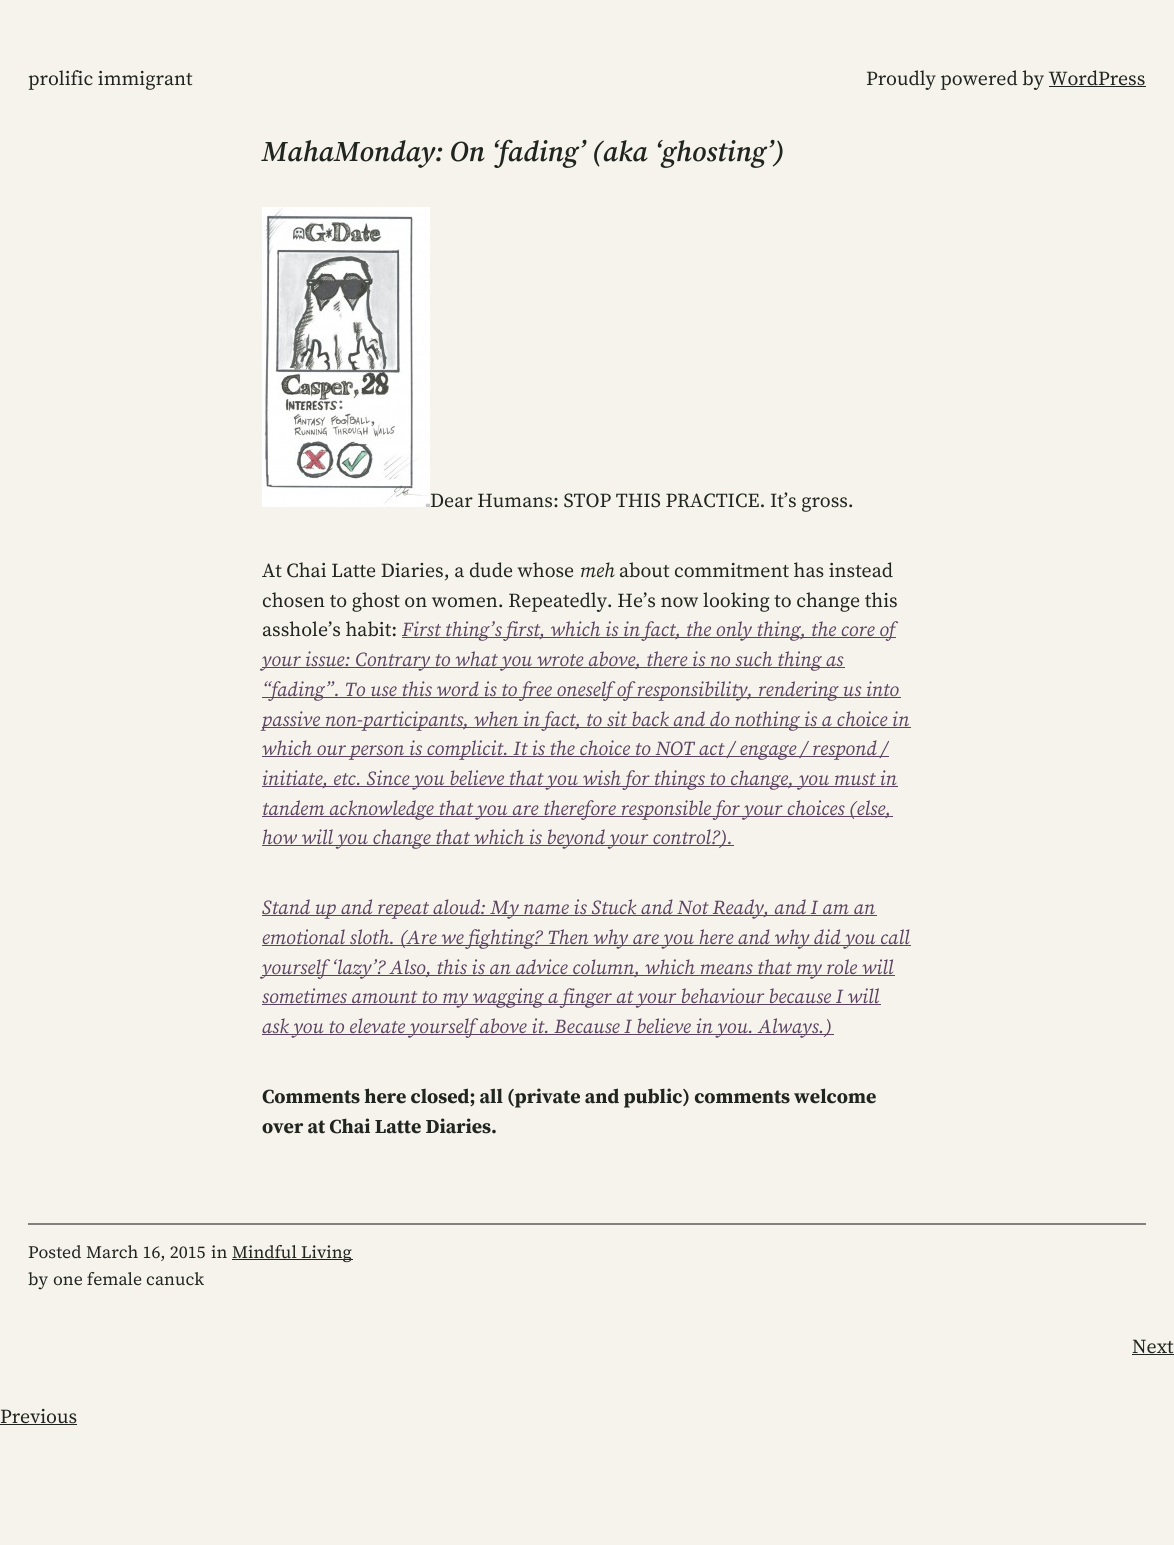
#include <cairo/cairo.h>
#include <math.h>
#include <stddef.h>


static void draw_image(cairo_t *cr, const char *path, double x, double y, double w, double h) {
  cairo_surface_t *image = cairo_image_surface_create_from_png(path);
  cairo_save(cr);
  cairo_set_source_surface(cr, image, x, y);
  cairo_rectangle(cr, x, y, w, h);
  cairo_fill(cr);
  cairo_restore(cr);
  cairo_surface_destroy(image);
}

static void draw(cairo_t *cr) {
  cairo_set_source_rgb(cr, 246 / 255.0, 242 / 255.0, 236 / 255.0);
  cairo_paint(cr);
  cairo_set_source_rgb(cr, 33 / 255.0, 37 / 255.0, 31 / 255.0);
  cairo_rectangle(cr, 1049, 86, 97, 1);
  cairo_fill(cr);
  draw_image(cr, "images/1.png", 262, 207, 168, 300);
  cairo_set_source_rgb(cr, 91 / 255.0, 68 / 255.0, 96 / 255.0);
  cairo_rectangle(cr, 402, 637, 494, 1);
  cairo_fill(cr);
  cairo_rectangle(cr, 262, 667, 583, 1);
  cairo_fill(cr);
  cairo_rectangle(cr, 262, 697, 639, 1);
  cairo_fill(cr);
  cairo_rectangle(cr, 262, 727, 649, 1);
  cairo_fill(cr);
  cairo_rectangle(cr, 262, 756, 627, 1);
  cairo_fill(cr);
  cairo_rectangle(cr, 262, 786, 636, 1);
  cairo_fill(cr);
  cairo_rectangle(cr, 262, 816, 631, 1);
  cairo_fill(cr);
  cairo_rectangle(cr, 262, 845, 472, 1);
  cairo_fill(cr);
  cairo_rectangle(cr, 262, 915, 615, 1);
  cairo_fill(cr);
  cairo_rectangle(cr, 262, 945, 649, 1);
  cairo_fill(cr);
  cairo_rectangle(cr, 262, 975, 633, 1);
  cairo_fill(cr);
  cairo_rectangle(cr, 262, 1004, 619, 1);
  cairo_fill(cr);
  cairo_rectangle(cr, 262, 1034, 572, 1);
  cairo_fill(cr);
  cairo_set_source_rgb(cr, 128 / 255.0, 128 / 255.0, 128 / 255.0);
  cairo_rectangle(cr, 28, 1223, 1118, 2);
  cairo_fill(cr);
  cairo_set_source_rgb(cr, 33 / 255.0, 37 / 255.0, 31 / 255.0);
  cairo_rectangle(cr, 232, 1259, 121, 1);
  cairo_fill(cr);
  cairo_rectangle(cr, 1132, 1354, 42, 1);
  cairo_fill(cr);
  cairo_rectangle(cr, 0, 1424, 77, 1);
  cairo_fill(cr);
  cairo_select_font_face(cr, "Source Serif 4", CAIRO_FONT_SLANT_NORMAL, CAIRO_FONT_WEIGHT_NORMAL);
  cairo_set_font_size(cr, 19.8);
  cairo_move_to(cr, 28, 85);
  cairo_show_text(cr, "prolific immigrant");
  cairo_move_to(cr, 866, 85);
  cairo_show_text(cr, "Proudly powered by WordPress");
  cairo_select_font_face(cr, "Source Serif 4 SemiBold", CAIRO_FONT_SLANT_ITALIC, CAIRO_FONT_WEIGHT_NORMAL);
  cairo_set_font_size(cr, 28.6);
  cairo_move_to(cr, 262, 161);
  cairo_show_text(cr, "MahaMonday: On ‘fading’ (aka ‘ghosting’)");
  cairo_select_font_face(cr, "Source Serif 4", CAIRO_FONT_SLANT_NORMAL, CAIRO_FONT_WEIGHT_NORMAL);
  cairo_set_font_size(cr, 19.8);
  cairo_move_to(cr, 430, 507);
  cairo_show_text(cr, "Dear Humans: STOP THIS PRACTICE. It’s gross.");
  cairo_move_to(cr, 262, 577);
  cairo_show_text(cr, "At Chai Latte Diaries, a dude whose");
  cairo_select_font_face(cr, "Source Serif 4", CAIRO_FONT_SLANT_ITALIC, CAIRO_FONT_WEIGHT_NORMAL);
  cairo_move_to(cr, 580, 577);
  cairo_show_text(cr, "meh");
  cairo_select_font_face(cr, "Source Serif 4", CAIRO_FONT_SLANT_NORMAL, CAIRO_FONT_WEIGHT_NORMAL);
  cairo_move_to(cr, 619, 577);
  cairo_show_text(cr, "about commitment has instead");
  cairo_move_to(cr, 262, 607);
  cairo_show_text(cr, "chosen to ghost on women. Repeatedly. He’s now looking to change this");
  cairo_move_to(cr, 262, 636);
  cairo_show_text(cr, "asshole’s habit:");
  cairo_select_font_face(cr, "Source Serif 4", CAIRO_FONT_SLANT_ITALIC, CAIRO_FONT_WEIGHT_NORMAL);
  cairo_set_source_rgb(cr, 91 / 255.0, 68 / 255.0, 96 / 255.0);
  cairo_move_to(cr, 402, 636);
  cairo_show_text(cr, "First thing’s first, which is in fact, the only thing, the core of");
  cairo_move_to(cr, 262, 666);
  cairo_show_text(cr, "your issue: Contrary to what you wrote above, there is no such thing as");
  cairo_move_to(cr, 262, 696);
  cairo_show_text(cr, "“fading”. To use this word is to free oneself of responsibility, rendering us into");
  cairo_move_to(cr, 262, 726);
  cairo_show_text(cr, "passive non-participants, when in fact, to sit back and do nothing is a choice in");
  cairo_move_to(cr, 262, 755);
  cairo_show_text(cr, "which our person is complicit. It is the choice to NOT act / engage / respond /");
  cairo_move_to(cr, 262, 785);
  cairo_show_text(cr, "initiate, etc. Since you believe that you wish for things to change, you must in");
  cairo_move_to(cr, 262, 815);
  cairo_show_text(cr, "tandem acknowledge that you are therefore responsible for your choices (else,");
  cairo_move_to(cr, 262, 844);
  cairo_show_text(cr, "how will you change that which is beyond your control?).");
  cairo_move_to(cr, 262, 914);
  cairo_show_text(cr, "Stand up and repeat aloud: My name is Stuck and Not Ready, and I am an");
  cairo_move_to(cr, 262, 944);
  cairo_show_text(cr, "emotional sloth. (Are we fighting? Then why are you here and why did you call");
  cairo_move_to(cr, 262, 974);
  cairo_show_text(cr, "yourself ‘lazy’? Also, this is an advice column, which means that my role will");
  cairo_move_to(cr, 262, 1003);
  cairo_show_text(cr, "sometimes amount to my wagging a finger at your behaviour because I will");
  cairo_move_to(cr, 262, 1033);
  cairo_show_text(cr, "ask you to elevate yourself above it. Because I believe in you. Always.)");
  cairo_select_font_face(cr, "Source Serif 4", CAIRO_FONT_SLANT_NORMAL, CAIRO_FONT_WEIGHT_BOLD);
  cairo_set_source_rgb(cr, 33 / 255.0, 37 / 255.0, 31 / 255.0);
  cairo_move_to(cr, 262, 1103);
  cairo_show_text(cr, "Comments here closed; all (private and public) comments welcome");
  cairo_move_to(cr, 262, 1133);
  cairo_show_text(cr, "over at Chai Latte Diaries.");
  cairo_select_font_face(cr, "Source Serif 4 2", CAIRO_FONT_SLANT_NORMAL, CAIRO_FONT_WEIGHT_NORMAL);
  cairo_set_font_size(cr, 17.5);
  cairo_move_to(cr, 28, 1258);
  cairo_show_text(cr, "Posted");
  cairo_move_to(cr, 86, 1258);
  cairo_show_text(cr, "March 16, 2015");
  cairo_move_to(cr, 211, 1258);
  cairo_show_text(cr, "in");
  cairo_move_to(cr, 232, 1258);
  cairo_show_text(cr, "Mindful Living");
  cairo_move_to(cr, 28, 1285);
  cairo_show_text(cr, "by");
  cairo_move_to(cr, 53, 1285);
  cairo_show_text(cr, "one female canuck");
  cairo_select_font_face(cr, "Source Serif 4", CAIRO_FONT_SLANT_NORMAL, CAIRO_FONT_WEIGHT_NORMAL);
  cairo_set_font_size(cr, 19.8);
  cairo_move_to(cr, 1132, 1353);
  cairo_show_text(cr, "Next");
  cairo_move_to(cr, 0, 1423);
  cairo_show_text(cr, "Previous");
}

int main(void) {
  cairo_surface_t *surface = cairo_image_surface_create(CAIRO_FORMAT_RGB24, 1174, 1545);
  cairo_t *cr = cairo_create(surface);
  cairo_font_options_t *options = cairo_font_options_create();
  cairo_font_options_set_hint_metrics(options, CAIRO_HINT_METRICS_OFF);
  cairo_font_options_set_hint_style(options, CAIRO_HINT_STYLE_NONE);
  cairo_set_font_options(cr, options);
  cairo_set_miter_limit(cr, 4);
  draw(cr);
  cairo_surface_write_to_png(surface, "out.png");
  cairo_font_options_destroy(options);
  cairo_destroy(cr);
  cairo_surface_destroy(surface);
  return 0;
}
